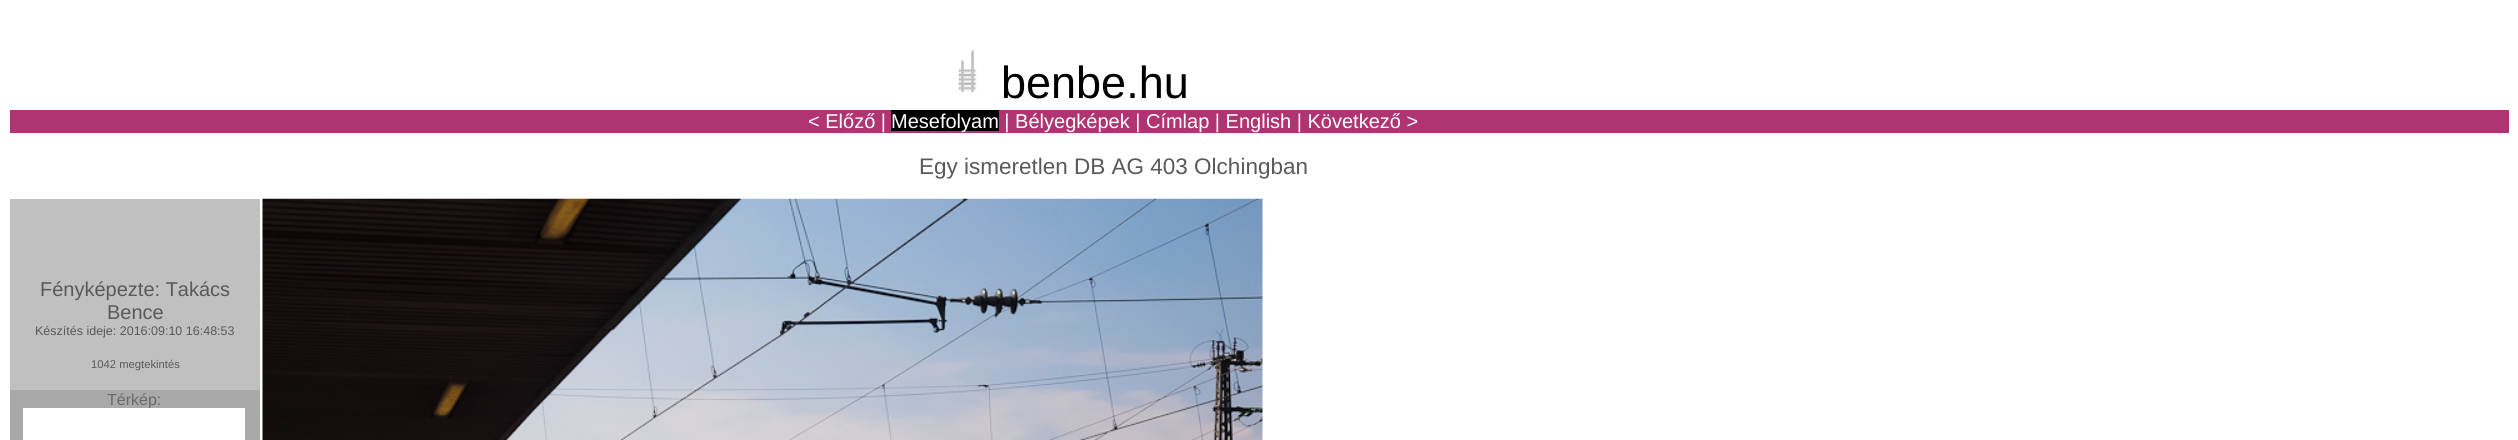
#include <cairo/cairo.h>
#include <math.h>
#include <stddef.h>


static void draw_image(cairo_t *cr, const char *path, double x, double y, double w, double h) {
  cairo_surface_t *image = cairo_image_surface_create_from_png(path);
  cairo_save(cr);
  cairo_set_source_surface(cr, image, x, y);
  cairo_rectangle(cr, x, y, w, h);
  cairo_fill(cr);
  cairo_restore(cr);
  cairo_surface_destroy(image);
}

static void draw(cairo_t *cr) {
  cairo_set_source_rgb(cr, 1, 1, 1);
  cairo_paint(cr);
  draw_image(cr, "images/1.png", 958, 50, 19, 43);
  cairo_set_source_rgb(cr, 177 / 255.0, 52 / 255.0, 114 / 255.0);
  cairo_rectangle(cr, 10, 110, 2499, 23);
  cairo_fill(cr);
  cairo_set_source_rgb(cr, 0, 0, 0);
  cairo_rectangle(cr, 891, 110, 108, 21);
  cairo_fill(cr);
  cairo_set_source_rgb(cr, 192 / 255.0, 192 / 255.0, 192 / 255.0);
  cairo_rectangle(cr, 10, 199, 250, 191);
  cairo_fill(cr);
  cairo_set_source_rgb(cr, 169 / 255.0, 169 / 255.0, 169 / 255.0);
  cairo_rectangle(cr, 10, 390, 250, 50);
  cairo_fill(cr);
  draw_image(cr, "images/2.png", 262, 198, 1001, 242);
  cairo_select_font_face(cr, "Liberation Sans", CAIRO_FONT_SLANT_NORMAL, CAIRO_FONT_WEIGHT_NORMAL);
  cairo_set_font_size(cr, 45);
  cairo_set_source_rgb(cr, 0, 0, 0);
  cairo_move_to(cr, 1001, 98);
  cairo_show_text(cr, "benbe.hu");
  cairo_set_font_size(cr, 20);
  cairo_set_source_rgb(cr, 1, 1, 1);
  cairo_move_to(cr, 808, 128);
  cairo_show_text(cr, "< Előző |");
  cairo_move_to(cr, 891, 128);
  cairo_show_text(cr, "Mesefolyam | Bélyegképek | Címlap | English | Következő >");
  cairo_set_font_size(cr, 22.5);
  cairo_set_source_rgb(cr, 89 / 255.0, 89 / 255.0, 89 / 255.0);
  cairo_move_to(cr, 919, 174);
  cairo_show_text(cr, "Egy ismeretlen DB AG 403 Olchingban");
  cairo_set_font_size(cr, 20);
  cairo_move_to(cr, 40, 296);
  cairo_show_text(cr, "Fényképezte: Takács");
  cairo_move_to(cr, 107, 319);
  cairo_show_text(cr, "Bence");
  cairo_set_font_size(cr, 12.5);
  cairo_move_to(cr, 35, 335);
  cairo_show_text(cr, "Készítés ideje: 2016:09:10 16:48:53");
  cairo_set_font_size(cr, 11.25);
  cairo_move_to(cr, 91, 368);
  cairo_show_text(cr, "1042 megtekintés");
  cairo_set_font_size(cr, 16);
  cairo_set_source_rgb(cr, 105 / 255.0, 105 / 255.0, 105 / 255.0);
  cairo_move_to(cr, 107, 405);
  cairo_show_text(cr, "Térkép:");
  cairo_set_source_rgb(cr, 1, 1, 1);
  cairo_rectangle(cr, 23, 408, 222, 32);
  cairo_fill(cr);
}

int main(void) {
  cairo_surface_t *surface = cairo_image_surface_create(CAIRO_FORMAT_RGB24, 2518, 440);
  cairo_t *cr = cairo_create(surface);
  cairo_font_options_t *options = cairo_font_options_create();
  cairo_font_options_set_hint_metrics(options, CAIRO_HINT_METRICS_OFF);
  cairo_font_options_set_hint_style(options, CAIRO_HINT_STYLE_NONE);
  cairo_set_font_options(cr, options);
  cairo_set_miter_limit(cr, 4);
  draw(cr);
  cairo_surface_write_to_png(surface, "out.png");
  cairo_font_options_destroy(options);
  cairo_destroy(cr);
  cairo_surface_destroy(surface);
  return 0;
}
